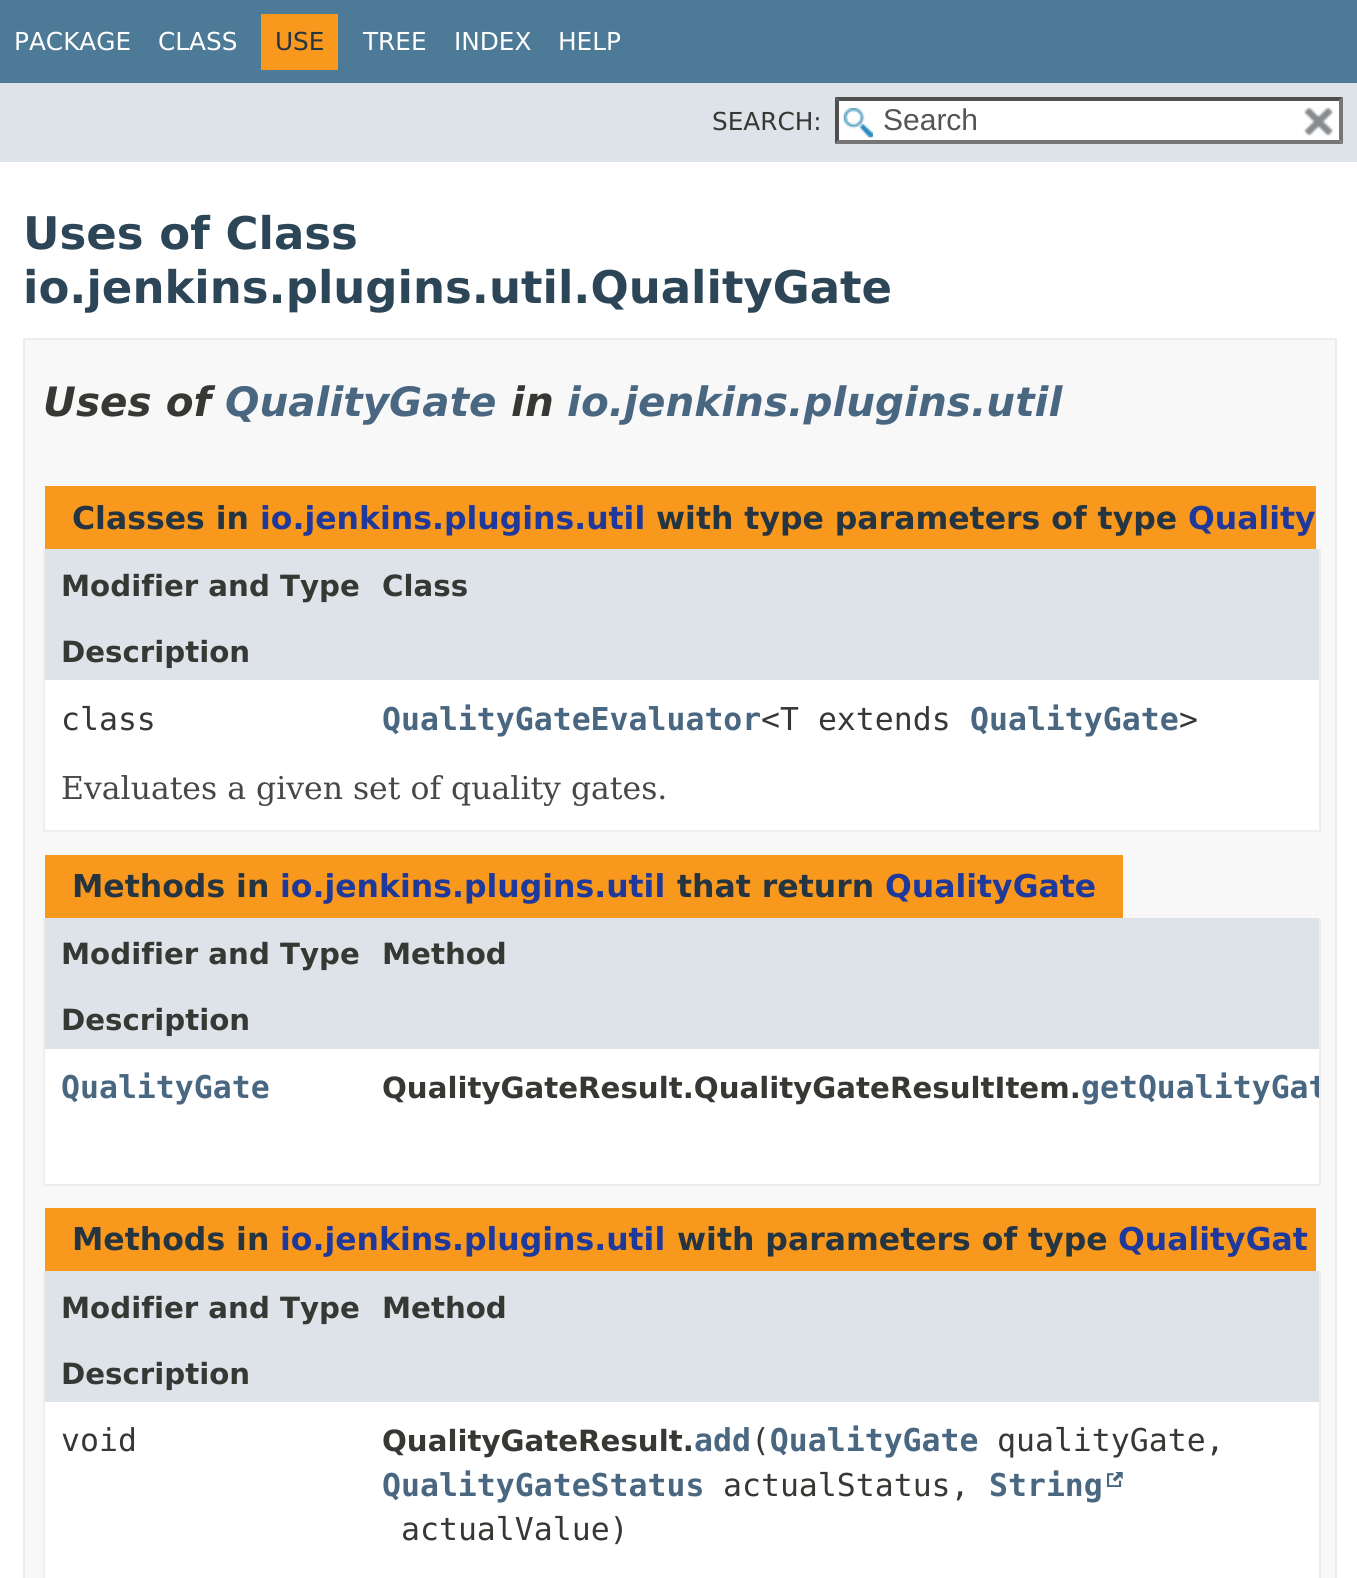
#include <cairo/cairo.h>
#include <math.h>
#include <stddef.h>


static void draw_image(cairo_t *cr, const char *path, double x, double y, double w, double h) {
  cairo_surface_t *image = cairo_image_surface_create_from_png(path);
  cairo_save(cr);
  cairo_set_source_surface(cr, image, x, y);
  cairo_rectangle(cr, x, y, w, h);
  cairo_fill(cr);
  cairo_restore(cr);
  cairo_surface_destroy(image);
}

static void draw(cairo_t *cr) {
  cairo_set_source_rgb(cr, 1, 1, 1);
  cairo_paint(cr);
  cairo_set_source_rgb(cr, 77 / 255.0, 122 / 255.0, 151 / 255.0);
  cairo_rectangle(cr, 0, 0, 1357, 83);
  cairo_fill(cr);
  cairo_set_source_rgb(cr, 248 / 255.0, 152 / 255.0, 29 / 255.0);
  cairo_rectangle(cr, 261, 14, 77, 56);
  cairo_fill(cr);
  cairo_set_source_rgb(cr, 222 / 255.0, 227 / 255.0, 233 / 255.0);
  cairo_rectangle(cr, 0, 83, 1357, 79);
  cairo_fill(cr);
  cairo_set_source_rgb(cr, 1, 1, 1);
  cairo_rectangle(cr, 835, 97, 508, 47);
  cairo_fill(cr);
  draw_image(cr, "images/1.png", 843, 108, 30, 30);
  cairo_set_source_rgb(cr, 79 / 255.0, 79 / 255.0, 79 / 255.0);
  cairo_new_path(cr);
  cairo_move_to(cr, 835, 97);
  cairo_line_to(cr, 1343, 97);
  cairo_line_to(cr, 1339, 101);
  cairo_line_to(cr, 839, 101);
  cairo_close_path(cr);
  cairo_fill(cr);
  cairo_set_source_rgb(cr, 118 / 255.0, 118 / 255.0, 118 / 255.0);
  cairo_new_path(cr);
  cairo_move_to(cr, 1343, 97);
  cairo_line_to(cr, 1343, 144);
  cairo_line_to(cr, 1339, 140);
  cairo_line_to(cr, 1339, 101);
  cairo_close_path(cr);
  cairo_fill(cr);
  cairo_new_path(cr);
  cairo_move_to(cr, 1343, 144);
  cairo_line_to(cr, 835, 144);
  cairo_line_to(cr, 839, 140);
  cairo_line_to(cr, 1339, 140);
  cairo_close_path(cr);
  cairo_fill(cr);
  cairo_set_source_rgb(cr, 79 / 255.0, 79 / 255.0, 79 / 255.0);
  cairo_new_path(cr);
  cairo_move_to(cr, 835, 144);
  cairo_line_to(cr, 835, 97);
  cairo_line_to(cr, 839, 101);
  cairo_line_to(cr, 839, 140);
  cairo_close_path(cr);
  cairo_fill(cr);
  draw_image(cr, "images/2.png", 1303, 107, 30, 29);
  cairo_set_source_rgb(cr, 248 / 255.0, 248 / 255.0, 248 / 255.0);
  cairo_rectangle(cr, 24, 339, 1312, 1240);
  cairo_fill_preserve(cr);
  cairo_set_source_rgb(cr, 237 / 255.0, 237 / 255.0, 237 / 255.0);
  cairo_stroke(cr);
  cairo_set_source_rgb(cr, 248 / 255.0, 152 / 255.0, 29 / 255.0);
  cairo_rectangle(cr, 45, 486, 1271, 63);
  cairo_fill(cr);
  cairo_set_source_rgb(cr, 238 / 255.0, 238 / 255.0, 238 / 255.0);
  cairo_rectangle(cr, 1319, 549, 2, 284);
  cairo_fill(cr);
  cairo_rectangle(cr, 43, 830, 1278, 2);
  cairo_fill(cr);
  cairo_rectangle(cr, 43, 549, 2, 284);
  cairo_fill(cr);
  cairo_set_source_rgb(cr, 222 / 255.0, 227 / 255.0, 233 / 255.0);
  cairo_rectangle(cr, 45, 549, 1274, 65);
  cairo_fill(cr);
  cairo_rectangle(cr, 45, 614, 1274, 66);
  cairo_fill(cr);
  cairo_set_source_rgb(cr, 1, 1, 1);
  cairo_rectangle(cr, 45, 680, 1274, 69);
  cairo_fill(cr);
  cairo_rectangle(cr, 45, 749, 1274, 81);
  cairo_fill(cr);
  cairo_set_source_rgb(cr, 248 / 255.0, 152 / 255.0, 29 / 255.0);
  cairo_rectangle(cr, 45, 855, 1078, 63);
  cairo_fill(cr);
  cairo_set_source_rgb(cr, 238 / 255.0, 238 / 255.0, 238 / 255.0);
  cairo_rectangle(cr, 1319, 918, 2, 268);
  cairo_fill(cr);
  cairo_rectangle(cr, 43, 1184, 1278, 2);
  cairo_fill(cr);
  cairo_rectangle(cr, 43, 918, 2, 268);
  cairo_fill(cr);
  cairo_set_source_rgb(cr, 222 / 255.0, 227 / 255.0, 233 / 255.0);
  cairo_rectangle(cr, 45, 918, 1274, 65);
  cairo_fill(cr);
  cairo_rectangle(cr, 45, 983, 1274, 66);
  cairo_fill(cr);
  cairo_set_source_rgb(cr, 1, 1, 1);
  cairo_rectangle(cr, 45, 1049, 1274, 69);
  cairo_fill(cr);
  cairo_rectangle(cr, 45, 1118, 1274, 66);
  cairo_fill(cr);
  cairo_set_source_rgb(cr, 248 / 255.0, 152 / 255.0, 29 / 255.0);
  cairo_rectangle(cr, 45, 1208, 1271, 63);
  cairo_fill(cr);
  cairo_set_source_rgb(cr, 238 / 255.0, 238 / 255.0, 238 / 255.0);
  cairo_rectangle(cr, 1319, 1271, 2, 307);
  cairo_fill(cr);
  cairo_rectangle(cr, 43, 1271, 2, 307);
  cairo_fill(cr);
  cairo_set_source_rgb(cr, 222 / 255.0, 227 / 255.0, 233 / 255.0);
  cairo_rectangle(cr, 45, 1271, 1274, 66);
  cairo_fill(cr);
  cairo_rectangle(cr, 45, 1337, 1274, 65);
  cairo_fill(cr);
  cairo_set_source_rgb(cr, 1, 1, 1);
  cairo_rectangle(cr, 45, 1402, 1274, 157);
  cairo_fill(cr);
  draw_image(cr, "images/3.png", 1107, 1472, 16, 15);
  cairo_rectangle(cr, 45, 1559, 1274, 19);
  cairo_fill(cr);
  cairo_select_font_face(cr, "DejaVu Sans", CAIRO_FONT_SLANT_NORMAL, CAIRO_FONT_WEIGHT_NORMAL);
  cairo_set_font_size(cr, 24.75);
  cairo_move_to(cr, 14, 50);
  cairo_show_text(cr, "PACKAGE");
  cairo_move_to(cr, 158, 50);
  cairo_show_text(cr, "CLASS");
  cairo_set_source_rgb(cr, 37 / 255.0, 52 / 255.0, 65 / 255.0);
  cairo_move_to(cr, 275, 50);
  cairo_show_text(cr, "USE");
  cairo_set_source_rgb(cr, 1, 1, 1);
  cairo_move_to(cr, 363, 50);
  cairo_show_text(cr, "TREE");
  cairo_move_to(cr, 454, 50);
  cairo_show_text(cr, "INDEX");
  cairo_move_to(cr, 558, 50);
  cairo_show_text(cr, "HELP");
  cairo_set_source_rgb(cr, 53 / 255.0, 56 / 255.0, 51 / 255.0);
  cairo_move_to(cr, 712, 130);
  cairo_show_text(cr, "SEARCH:");
  cairo_select_font_face(cr, "Liberation Sans", CAIRO_FONT_SLANT_NORMAL, CAIRO_FONT_WEIGHT_NORMAL);
  cairo_set_font_size(cr, 30);
  cairo_set_source_rgb(cr, 84 / 255.0, 84 / 255.0, 84 / 255.0);
  cairo_move_to(cr, 883, 130);
  cairo_show_text(cr, "Search");
  cairo_select_font_face(cr, "DejaVu Sans", CAIRO_FONT_SLANT_NORMAL, CAIRO_FONT_WEIGHT_BOLD);
  cairo_set_font_size(cr, 45);
  cairo_set_source_rgb(cr, 44 / 255.0, 69 / 255.0, 87 / 255.0);
  cairo_move_to(cr, 23, 249);
  cairo_show_text(cr, "Uses of Class");
  cairo_move_to(cr, 23, 303);
  cairo_show_text(cr, "io.jenkins.plugins.util.QualityGate");
  cairo_select_font_face(cr, "DejaVu Sans", CAIRO_FONT_SLANT_ITALIC, CAIRO_FONT_WEIGHT_BOLD);
  cairo_set_font_size(cr, 40.5);
  cairo_set_source_rgb(cr, 53 / 255.0, 56 / 255.0, 51 / 255.0);
  cairo_move_to(cr, 43, 416);
  cairo_show_text(cr, "Uses of");
  cairo_set_source_rgb(cr, 74 / 255.0, 103 / 255.0, 130 / 255.0);
  cairo_move_to(cr, 225, 416);
  cairo_show_text(cr, "QualityGate");
  cairo_set_source_rgb(cr, 53 / 255.0, 56 / 255.0, 51 / 255.0);
  cairo_move_to(cr, 511, 416);
  cairo_show_text(cr, "in");
  cairo_set_source_rgb(cr, 74 / 255.0, 103 / 255.0, 130 / 255.0);
  cairo_move_to(cr, 567, 416);
  cairo_show_text(cr, "io.jenkins.plugins.util");
  cairo_select_font_face(cr, "DejaVu Sans", CAIRO_FONT_SLANT_NORMAL, CAIRO_FONT_WEIGHT_BOLD);
  cairo_set_font_size(cr, 31.5);
  cairo_set_source_rgb(cr, 37 / 255.0, 52 / 255.0, 65 / 255.0);
  cairo_move_to(cr, 72, 529);
  cairo_show_text(cr, "Classes in");
  cairo_set_source_rgb(cr, 31 / 255.0, 56 / 255.0, 156 / 255.0);
  cairo_move_to(cr, 260, 529);
  cairo_show_text(cr, "io.jenkins.plugins.util");
  cairo_set_source_rgb(cr, 37 / 255.0, 52 / 255.0, 65 / 255.0);
  cairo_move_to(cr, 656, 529);
  cairo_show_text(cr, "with type parameters of type");
  cairo_set_source_rgb(cr, 31 / 255.0, 56 / 255.0, 156 / 255.0);
  cairo_move_to(cr, 1188, 529);
  cairo_show_text(cr, "Quality");
  cairo_set_font_size(cr, 29.25);
  cairo_set_source_rgb(cr, 53 / 255.0, 56 / 255.0, 51 / 255.0);
  cairo_move_to(cr, 61, 596);
  cairo_show_text(cr, "Modifier and Type");
  cairo_move_to(cr, 382, 596);
  cairo_show_text(cr, "Class");
  cairo_move_to(cr, 61, 662);
  cairo_show_text(cr, "Description");
  cairo_select_font_face(cr, "DejaVu Sans Mono", CAIRO_FONT_SLANT_NORMAL, CAIRO_FONT_WEIGHT_NORMAL);
  cairo_set_font_size(cr, 31.5);
  cairo_move_to(cr, 61, 730);
  cairo_show_text(cr, "class");
  cairo_select_font_face(cr, "DejaVu Sans Mono", CAIRO_FONT_SLANT_NORMAL, CAIRO_FONT_WEIGHT_BOLD);
  cairo_set_source_rgb(cr, 74 / 255.0, 103 / 255.0, 130 / 255.0);
  cairo_move_to(cr, 382, 730);
  cairo_show_text(cr, "QualityGateEvaluator");
  cairo_select_font_face(cr, "DejaVu Sans Mono", CAIRO_FONT_SLANT_NORMAL, CAIRO_FONT_WEIGHT_NORMAL);
  cairo_set_source_rgb(cr, 53 / 255.0, 56 / 255.0, 51 / 255.0);
  cairo_move_to(cr, 761, 730);
  cairo_show_text(cr, "<T extends");
  cairo_select_font_face(cr, "DejaVu Sans Mono", CAIRO_FONT_SLANT_NORMAL, CAIRO_FONT_WEIGHT_BOLD);
  cairo_set_source_rgb(cr, 74 / 255.0, 103 / 255.0, 130 / 255.0);
  cairo_move_to(cr, 970, 730);
  cairo_show_text(cr, "QualityGate");
  cairo_select_font_face(cr, "DejaVu Sans Mono", CAIRO_FONT_SLANT_NORMAL, CAIRO_FONT_WEIGHT_NORMAL);
  cairo_set_source_rgb(cr, 53 / 255.0, 56 / 255.0, 51 / 255.0);
  cairo_move_to(cr, 1179, 730);
  cairo_show_text(cr, ">");
  cairo_select_font_face(cr, "DejaVu Serif", CAIRO_FONT_SLANT_NORMAL, CAIRO_FONT_WEIGHT_NORMAL);
  cairo_set_source_rgb(cr, 71 / 255.0, 71 / 255.0, 71 / 255.0);
  cairo_move_to(cr, 61, 799);
  cairo_show_text(cr, "Evaluates a given set of quality gates.");
  cairo_select_font_face(cr, "DejaVu Sans", CAIRO_FONT_SLANT_NORMAL, CAIRO_FONT_WEIGHT_BOLD);
  cairo_set_source_rgb(cr, 37 / 255.0, 52 / 255.0, 65 / 255.0);
  cairo_move_to(cr, 72, 897);
  cairo_show_text(cr, "Methods in");
  cairo_set_source_rgb(cr, 31 / 255.0, 56 / 255.0, 156 / 255.0);
  cairo_move_to(cr, 280, 897);
  cairo_show_text(cr, "io.jenkins.plugins.util");
  cairo_set_source_rgb(cr, 37 / 255.0, 52 / 255.0, 65 / 255.0);
  cairo_move_to(cr, 677, 897);
  cairo_show_text(cr, "that return");
  cairo_set_source_rgb(cr, 31 / 255.0, 56 / 255.0, 156 / 255.0);
  cairo_move_to(cr, 885, 897);
  cairo_show_text(cr, "QualityGate");
  cairo_set_font_size(cr, 29.25);
  cairo_set_source_rgb(cr, 53 / 255.0, 56 / 255.0, 51 / 255.0);
  cairo_move_to(cr, 61, 964);
  cairo_show_text(cr, "Modifier and Type");
  cairo_move_to(cr, 382, 964);
  cairo_show_text(cr, "Method");
  cairo_move_to(cr, 61, 1030);
  cairo_show_text(cr, "Description");
  cairo_select_font_face(cr, "DejaVu Sans Mono", CAIRO_FONT_SLANT_NORMAL, CAIRO_FONT_WEIGHT_BOLD);
  cairo_set_font_size(cr, 31.5);
  cairo_set_source_rgb(cr, 74 / 255.0, 103 / 255.0, 130 / 255.0);
  cairo_move_to(cr, 61, 1098);
  cairo_show_text(cr, "QualityGate");
  cairo_select_font_face(cr, "DejaVu Sans", CAIRO_FONT_SLANT_NORMAL, CAIRO_FONT_WEIGHT_BOLD);
  cairo_set_font_size(cr, 29.25);
  cairo_set_source_rgb(cr, 53 / 255.0, 56 / 255.0, 51 / 255.0);
  cairo_move_to(cr, 382, 1098);
  cairo_show_text(cr, "QualityGateResult.QualityGateResultItem.");
  cairo_save(cr);
  cairo_rectangle(cr, 367, 1049, 952, 69);
  cairo_clip(cr);
  cairo_select_font_face(cr, "DejaVu Sans Mono", CAIRO_FONT_SLANT_NORMAL, CAIRO_FONT_WEIGHT_BOLD);
  cairo_set_font_size(cr, 31.5);
  cairo_set_source_rgb(cr, 74 / 255.0, 103 / 255.0, 130 / 255.0);
  cairo_move_to(cr, 1081, 1098);
  cairo_show_text(cr, "getQualityGat");
  cairo_restore(cr);
  cairo_set_font_size(cr, 31.5);
  cairo_set_source_rgb(cr, 37 / 255.0, 52 / 255.0, 65 / 255.0);
  cairo_move_to(cr, 72, 1250);
  cairo_show_text(cr, "Methods in");
  cairo_set_source_rgb(cr, 31 / 255.0, 56 / 255.0, 156 / 255.0);
  cairo_move_to(cr, 280, 1250);
  cairo_show_text(cr, "io.jenkins.plugins.util");
  cairo_set_source_rgb(cr, 37 / 255.0, 52 / 255.0, 65 / 255.0);
  cairo_move_to(cr, 677, 1250);
  cairo_show_text(cr, "with parameters of type");
  cairo_set_source_rgb(cr, 31 / 255.0, 56 / 255.0, 156 / 255.0);
  cairo_move_to(cr, 1118, 1250);
  cairo_show_text(cr, "QualityGat");
  cairo_set_font_size(cr, 29.25);
  cairo_set_source_rgb(cr, 53 / 255.0, 56 / 255.0, 51 / 255.0);
  cairo_move_to(cr, 61, 1318);
  cairo_show_text(cr, "Modifier and Type");
  cairo_move_to(cr, 382, 1318);
  cairo_show_text(cr, "Method");
  cairo_move_to(cr, 61, 1384);
  cairo_show_text(cr, "Description");
  cairo_select_font_face(cr, "DejaVu Sans Mono", CAIRO_FONT_SLANT_NORMAL, CAIRO_FONT_WEIGHT_NORMAL);
  cairo_set_font_size(cr, 31.5);
  cairo_move_to(cr, 61, 1451);
  cairo_show_text(cr, "void");
  cairo_select_font_face(cr, "DejaVu Sans Mono", CAIRO_FONT_SLANT_NORMAL, CAIRO_FONT_WEIGHT_BOLD);
  cairo_set_source_rgb(cr, 74 / 255.0, 103 / 255.0, 130 / 255.0);
  cairo_move_to(cr, 694, 1451);
  cairo_show_text(cr, "add QualityGate");
  cairo_select_font_face(cr, "DejaVu Sans Mono", CAIRO_FONT_SLANT_NORMAL, CAIRO_FONT_WEIGHT_NORMAL);
  cairo_set_source_rgb(cr, 53 / 255.0, 56 / 255.0, 51 / 255.0);
  cairo_move_to(cr, 997, 1451);
  cairo_show_text(cr, "qualityGate,");
  cairo_move_to(cr, 751, 1451);
  cairo_show_text(cr, "(");
  cairo_select_font_face(cr, "DejaVu Sans Mono", CAIRO_FONT_SLANT_NORMAL, CAIRO_FONT_WEIGHT_BOLD);
  cairo_set_source_rgb(cr, 74 / 255.0, 103 / 255.0, 130 / 255.0);
  cairo_move_to(cr, 382, 1496);
  cairo_show_text(cr, "QualityGateStatus");
  cairo_select_font_face(cr, "DejaVu Sans Mono", CAIRO_FONT_SLANT_NORMAL, CAIRO_FONT_WEIGHT_NORMAL);
  cairo_set_source_rgb(cr, 53 / 255.0, 56 / 255.0, 51 / 255.0);
  cairo_move_to(cr, 723, 1496);
  cairo_show_text(cr, "actualStatus,");
  cairo_select_font_face(cr, "DejaVu Sans Mono", CAIRO_FONT_SLANT_NORMAL, CAIRO_FONT_WEIGHT_BOLD);
  cairo_set_source_rgb(cr, 74 / 255.0, 103 / 255.0, 130 / 255.0);
  cairo_move_to(cr, 989, 1496);
  cairo_show_text(cr, "String");
  cairo_select_font_face(cr, "DejaVu Sans Mono", CAIRO_FONT_SLANT_NORMAL, CAIRO_FONT_WEIGHT_NORMAL);
  cairo_set_source_rgb(cr, 53 / 255.0, 56 / 255.0, 51 / 255.0);
  cairo_move_to(cr, 401, 1540);
  cairo_show_text(cr, "actualValue)");
  cairo_select_font_face(cr, "DejaVu Sans", CAIRO_FONT_SLANT_NORMAL, CAIRO_FONT_WEIGHT_BOLD);
  cairo_set_font_size(cr, 29.25);
  cairo_move_to(cr, 382, 1451);
  cairo_show_text(cr, "QualityGateResult.");
}

int main(void) {
  cairo_surface_t *surface = cairo_image_surface_create(CAIRO_FORMAT_RGB24, 1357, 1578);
  cairo_t *cr = cairo_create(surface);
  cairo_font_options_t *options = cairo_font_options_create();
  cairo_font_options_set_hint_metrics(options, CAIRO_HINT_METRICS_OFF);
  cairo_font_options_set_hint_style(options, CAIRO_HINT_STYLE_NONE);
  cairo_set_font_options(cr, options);
  cairo_set_miter_limit(cr, 4);
  draw(cr);
  cairo_surface_write_to_png(surface, "out.png");
  cairo_font_options_destroy(options);
  cairo_destroy(cr);
  cairo_surface_destroy(surface);
  return 0;
}
